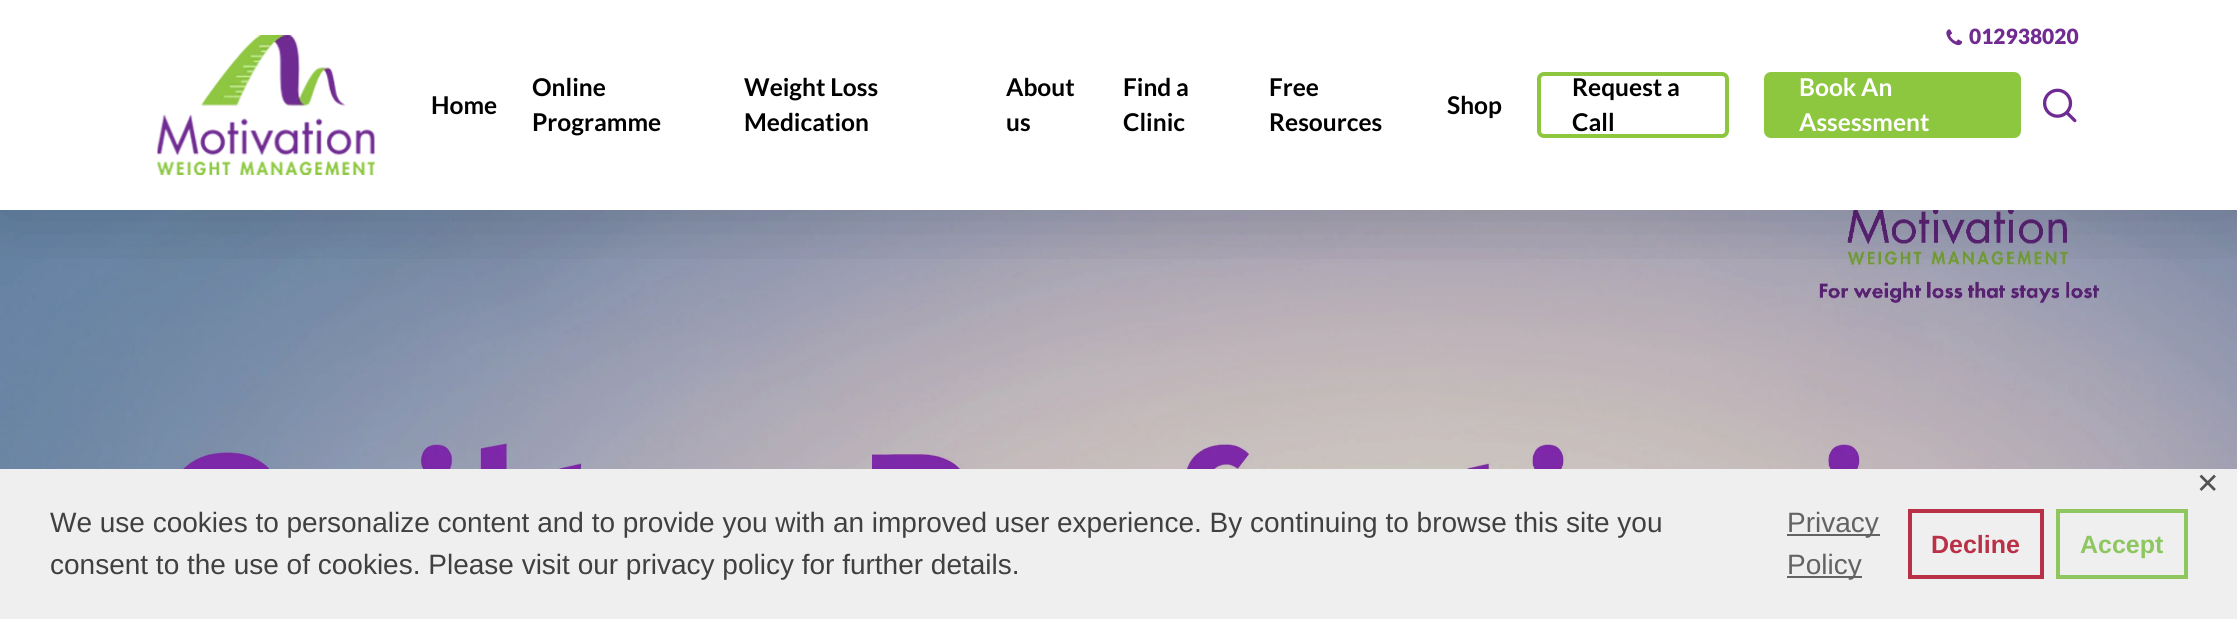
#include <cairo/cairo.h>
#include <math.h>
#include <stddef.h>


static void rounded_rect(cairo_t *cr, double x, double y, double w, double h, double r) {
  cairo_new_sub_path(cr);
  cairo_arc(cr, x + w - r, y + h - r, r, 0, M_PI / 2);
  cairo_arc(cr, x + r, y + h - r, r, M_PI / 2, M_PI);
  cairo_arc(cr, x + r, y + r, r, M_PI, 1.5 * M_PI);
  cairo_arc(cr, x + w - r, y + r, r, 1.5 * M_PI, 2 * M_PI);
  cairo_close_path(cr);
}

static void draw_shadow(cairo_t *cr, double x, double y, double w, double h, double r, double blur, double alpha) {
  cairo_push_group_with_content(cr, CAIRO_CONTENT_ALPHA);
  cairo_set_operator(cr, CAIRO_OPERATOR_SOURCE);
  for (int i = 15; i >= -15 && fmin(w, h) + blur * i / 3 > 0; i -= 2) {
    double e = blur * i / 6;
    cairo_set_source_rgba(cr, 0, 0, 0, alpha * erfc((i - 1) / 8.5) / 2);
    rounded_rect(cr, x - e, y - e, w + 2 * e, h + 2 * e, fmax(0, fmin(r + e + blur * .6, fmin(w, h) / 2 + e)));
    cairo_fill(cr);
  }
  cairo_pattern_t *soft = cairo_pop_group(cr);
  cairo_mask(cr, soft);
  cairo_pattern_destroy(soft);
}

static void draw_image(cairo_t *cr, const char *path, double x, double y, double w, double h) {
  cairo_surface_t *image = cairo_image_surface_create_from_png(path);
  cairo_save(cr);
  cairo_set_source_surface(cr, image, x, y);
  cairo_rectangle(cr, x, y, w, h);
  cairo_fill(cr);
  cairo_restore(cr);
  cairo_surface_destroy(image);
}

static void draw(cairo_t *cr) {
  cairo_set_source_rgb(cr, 1, 1, 1);
  cairo_paint(cr);
  draw_image(cr, "images/4.png", 0, 210, 2237, 259);
  cairo_save(cr);
  cairo_rectangle(cr, 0, 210, 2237, 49);
  cairo_clip(cr);
  cairo_set_source_rgb(cr, 0, 0, 0);
  draw_shadow(cr, 0, 5, 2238, 210, 0, 39.5, 0.15);
  cairo_restore(cr);
  draw_image(cr, "images/1.png", 1946, 29, 17, 17);
  draw_image(cr, "images/2.png", 157, 35, 218, 140);
  rounded_rect(cr, 1539, 74, 188, 62, 5);
  cairo_set_source_rgb(cr, 141 / 255.0, 199 / 255.0, 63 / 255.0);
  cairo_set_line_width(cr, 4);
  cairo_stroke(cr);
  rounded_rect(cr, 1764, 72, 257, 66, 7);
  cairo_fill(cr);
  draw_image(cr, "images/3.png", 2042, 88, 35, 35);
  cairo_set_source_rgb(cr, 239 / 255.0, 239 / 255.0, 239 / 255.0);
  cairo_rectangle(cr, 0, 469, 2237, 150);
  cairo_fill(cr);
  cairo_set_source_rgb(cr, 99 / 255.0, 99 / 255.0, 99 / 255.0);
  cairo_rectangle(cr, 1787, 534, 93, 2);
  cairo_fill(cr);
  cairo_rectangle(cr, 1787, 576, 75, 2);
  cairo_fill(cr);
  cairo_rectangle(cr, 1910, 511, 132, 66);
  cairo_set_source_rgb(cr, 185 / 255.0, 49 / 255.0, 71 / 255.0);
  cairo_stroke(cr);
  cairo_rectangle(cr, 2058, 511, 128, 66);
  cairo_set_source_rgb(cr, 142 / 255.0, 199 / 255.0, 96 / 255.0);
  cairo_stroke(cr);
  cairo_select_font_face(cr, "Lato Black", CAIRO_FONT_SLANT_NORMAL, CAIRO_FONT_WEIGHT_NORMAL);
  cairo_set_font_size(cr, 21);
  cairo_set_source_rgb(cr, 113 / 255.0, 43 / 255.0, 145 / 255.0);
  cairo_move_to(cr, 1969, 44);
  cairo_show_text(cr, "012938020");
  cairo_select_font_face(cr, "Lato", CAIRO_FONT_SLANT_NORMAL, CAIRO_FONT_WEIGHT_BOLD);
  cairo_set_font_size(cr, 24.5);
  cairo_set_source_rgb(cr, 0, 0, 0);
  cairo_move_to(cr, 431, 114);
  cairo_show_text(cr, "Home");
  cairo_move_to(cr, 532, 96);
  cairo_show_text(cr, "Online");
  cairo_move_to(cr, 532, 131);
  cairo_show_text(cr, "Programme");
  cairo_move_to(cr, 744, 96);
  cairo_show_text(cr, "Weight Loss");
  cairo_move_to(cr, 744, 131);
  cairo_show_text(cr, "Medication");
  cairo_move_to(cr, 1006, 96);
  cairo_show_text(cr, "About");
  cairo_move_to(cr, 1006, 131);
  cairo_show_text(cr, "us");
  cairo_move_to(cr, 1123, 96);
  cairo_show_text(cr, "Find a");
  cairo_move_to(cr, 1123, 131);
  cairo_show_text(cr, "Clinic");
  cairo_move_to(cr, 1269, 96);
  cairo_show_text(cr, "Free");
  cairo_move_to(cr, 1269, 131);
  cairo_show_text(cr, "Resources");
  cairo_move_to(cr, 1447, 114);
  cairo_show_text(cr, "Shop");
  cairo_move_to(cr, 1572, 96);
  cairo_show_text(cr, "Request a");
  cairo_move_to(cr, 1572, 131);
  cairo_show_text(cr, "Call");
  cairo_set_source_rgb(cr, 1, 1, 1);
  cairo_move_to(cr, 1799, 96);
  cairo_show_text(cr, "Book An");
  cairo_move_to(cr, 1799, 131);
  cairo_show_text(cr, "Assessment");
  cairo_select_font_face(cr, "DejaVu Sans", CAIRO_FONT_SLANT_NORMAL, CAIRO_FONT_WEIGHT_NORMAL);
  cairo_set_font_size(cr, 28);
  cairo_set_source_rgb(cr, 82 / 255.0, 82 / 255.0, 82 / 255.0);
  cairo_move_to(cr, 2196, 493);
  cairo_show_text(cr, "✕");
  cairo_select_font_face(cr, "Liberation Sans", CAIRO_FONT_SLANT_NORMAL, CAIRO_FONT_WEIGHT_NORMAL);
  cairo_set_source_rgb(cr, 64 / 255.0, 64 / 255.0, 64 / 255.0);
  cairo_move_to(cr, 50, 532);
  cairo_show_text(cr, "We use cookies to personalize content and to provide you with an improved user experience. By continuing to browse this site you");
  cairo_move_to(cr, 50, 574);
  cairo_show_text(cr, "consent to the use of cookies. Please visit our privacy policy for further details.");
  cairo_set_source_rgb(cr, 99 / 255.0, 99 / 255.0, 99 / 255.0);
  cairo_move_to(cr, 1787, 532);
  cairo_show_text(cr, "Privacy");
  cairo_move_to(cr, 1787, 574);
  cairo_show_text(cr, "Policy");
  cairo_select_font_face(cr, "Liberation Sans", CAIRO_FONT_SLANT_NORMAL, CAIRO_FONT_WEIGHT_BOLD);
  cairo_set_font_size(cr, 25);
  cairo_set_source_rgb(cr, 185 / 255.0, 49 / 255.0, 71 / 255.0);
  cairo_move_to(cr, 1931, 553);
  cairo_show_text(cr, "Decline");
  cairo_set_source_rgb(cr, 142 / 255.0, 199 / 255.0, 96 / 255.0);
  cairo_move_to(cr, 2080, 553);
  cairo_show_text(cr, "Accept");
}

int main(void) {
  cairo_surface_t *surface = cairo_image_surface_create(CAIRO_FORMAT_RGB24, 2237, 619);
  cairo_t *cr = cairo_create(surface);
  cairo_font_options_t *options = cairo_font_options_create();
  cairo_font_options_set_hint_metrics(options, CAIRO_HINT_METRICS_OFF);
  cairo_font_options_set_hint_style(options, CAIRO_HINT_STYLE_NONE);
  cairo_set_font_options(cr, options);
  cairo_set_miter_limit(cr, 4);
  draw(cr);
  cairo_surface_write_to_png(surface, "out.png");
  cairo_font_options_destroy(options);
  cairo_destroy(cr);
  cairo_surface_destroy(surface);
  return 0;
}
